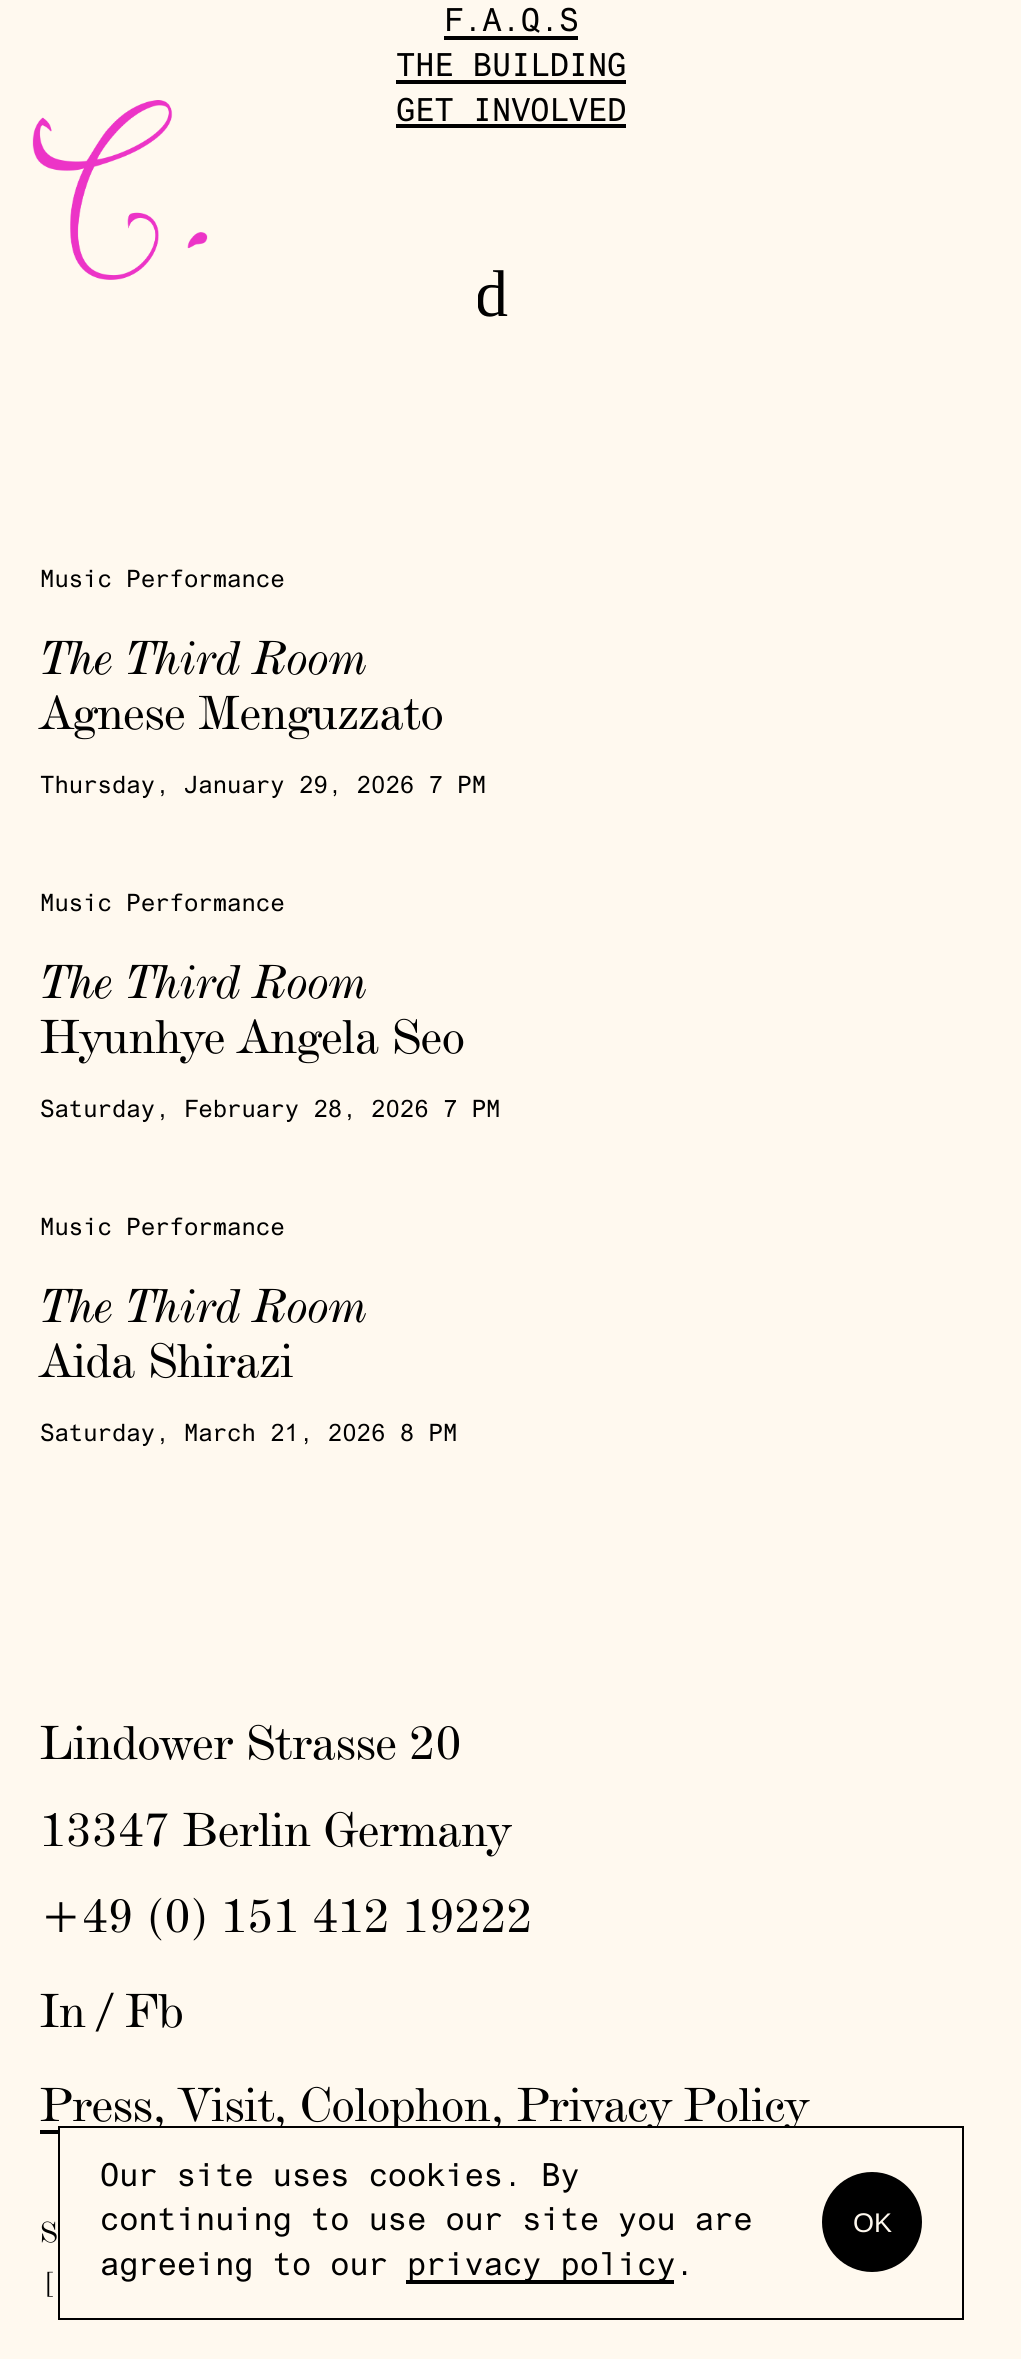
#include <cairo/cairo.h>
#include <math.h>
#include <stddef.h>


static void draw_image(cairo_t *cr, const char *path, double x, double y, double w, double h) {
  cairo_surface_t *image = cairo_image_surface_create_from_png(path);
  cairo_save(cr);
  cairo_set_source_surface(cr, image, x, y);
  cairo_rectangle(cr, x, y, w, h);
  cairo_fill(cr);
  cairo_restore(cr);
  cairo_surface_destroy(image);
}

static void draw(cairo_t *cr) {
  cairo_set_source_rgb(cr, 1, 249 / 255.0, 239 / 255.0);
  cairo_paint(cr);
  cairo_set_source_rgb(cr, 0, 0, 0);
  cairo_rectangle(cr, 444, 36, 134, 4);
  cairo_fill(cr);
  cairo_rectangle(cr, 396, 80, 230, 4);
  cairo_fill(cr);
  cairo_rectangle(cr, 396, 124, 230, 4);
  cairo_fill(cr);
  draw_image(cr, "images/1.png", 32, 100, 176, 180);
  cairo_rectangle(cr, 40, 2130, 18, 4);
  cairo_fill(cr);
  cairo_select_font_face(cr, "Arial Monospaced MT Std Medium", CAIRO_FONT_SLANT_NORMAL, CAIRO_FONT_WEIGHT_NORMAL);
  cairo_set_font_size(cr, 32);
  cairo_move_to(cr, 444, 31);
  cairo_show_text(cr, "F.A.Q.S");
  cairo_move_to(cr, 396, 76);
  cairo_show_text(cr, "THE BUILDING");
  cairo_move_to(cr, 396, 121);
  cairo_show_text(cr, "GET INVOLVED");
  cairo_save(cr);
  cairo_rectangle(cr, 478, 266, 66, 66);
  cairo_clip(cr);
  cairo_select_font_face(cr, "Liberation Serif", CAIRO_FONT_SLANT_NORMAL, CAIRO_FONT_WEIGHT_NORMAL);
  cairo_set_font_size(cr, 66);
  cairo_move_to(cr, 475, 316);
  cairo_show_text(cr, "d");
  cairo_restore(cr);
  cairo_set_font_size(cr, 24);
  cairo_move_to(cr, 40, 587);
  cairo_show_text(cr, "Music Performance");
  cairo_select_font_face(cr, "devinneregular", CAIRO_FONT_SLANT_ITALIC, CAIRO_FONT_WEIGHT_NORMAL);
  cairo_set_font_size(cr, 50);
  cairo_move_to(cr, 40, 674);
  cairo_show_text(cr, "The Third Room");
  cairo_select_font_face(cr, "devinneregular", CAIRO_FONT_SLANT_NORMAL, CAIRO_FONT_WEIGHT_NORMAL);
  cairo_move_to(cr, 40, 729);
  cairo_show_text(cr, "Agnese Menguzzato");
  cairo_select_font_face(cr, "Arial Monospaced MT Std Medium", CAIRO_FONT_SLANT_NORMAL, CAIRO_FONT_WEIGHT_NORMAL);
  cairo_set_font_size(cr, 24);
  cairo_move_to(cr, 40, 793);
  cairo_show_text(cr, "Thursday, January 29, 2026 7 PM");
  cairo_move_to(cr, 40, 911);
  cairo_show_text(cr, "Music Performance");
  cairo_select_font_face(cr, "devinneregular", CAIRO_FONT_SLANT_ITALIC, CAIRO_FONT_WEIGHT_NORMAL);
  cairo_set_font_size(cr, 50);
  cairo_move_to(cr, 40, 998);
  cairo_show_text(cr, "The Third Room");
  cairo_select_font_face(cr, "devinneregular", CAIRO_FONT_SLANT_NORMAL, CAIRO_FONT_WEIGHT_NORMAL);
  cairo_move_to(cr, 40, 1053);
  cairo_show_text(cr, "Hyunhye Angela Seo");
  cairo_select_font_face(cr, "Arial Monospaced MT Std Medium", CAIRO_FONT_SLANT_NORMAL, CAIRO_FONT_WEIGHT_NORMAL);
  cairo_set_font_size(cr, 24);
  cairo_move_to(cr, 40, 1117);
  cairo_show_text(cr, "Saturday, February 28, 2026 7 PM");
  cairo_move_to(cr, 40, 1235);
  cairo_show_text(cr, "Music Performance");
  cairo_select_font_face(cr, "devinneregular", CAIRO_FONT_SLANT_ITALIC, CAIRO_FONT_WEIGHT_NORMAL);
  cairo_set_font_size(cr, 50);
  cairo_move_to(cr, 40, 1322);
  cairo_show_text(cr, "The Third Room");
  cairo_select_font_face(cr, "devinneregular", CAIRO_FONT_SLANT_NORMAL, CAIRO_FONT_WEIGHT_NORMAL);
  cairo_move_to(cr, 40, 1377);
  cairo_show_text(cr, "Aida Shirazi");
  cairo_select_font_face(cr, "Arial Monospaced MT Std Medium", CAIRO_FONT_SLANT_NORMAL, CAIRO_FONT_WEIGHT_NORMAL);
  cairo_set_font_size(cr, 24);
  cairo_move_to(cr, 40, 1441);
  cairo_show_text(cr, "Saturday, March 21, 2026 8 PM");
  cairo_select_font_face(cr, "devinneregular", CAIRO_FONT_SLANT_NORMAL, CAIRO_FONT_WEIGHT_NORMAL);
  cairo_set_font_size(cr, 50);
  cairo_move_to(cr, 40, 1759);
  cairo_show_text(cr, "Lindower Strasse 20");
  cairo_move_to(cr, 40, 1846);
  cairo_show_text(cr, "13347 Berlin Germany");
  cairo_move_to(cr, 40, 1932);
  cairo_show_text(cr, "+49 (0) 151 412 19222");
  cairo_move_to(cr, 40, 2027);
  cairo_show_text(cr, "In / Fb");
  cairo_move_to(cr, 40, 2121);
  cairo_show_text(cr, "Press");
  cairo_move_to(cr, 153, 2121);
  cairo_show_text(cr, ", Visit");
  cairo_move_to(cr, 274, 2121);
  cairo_show_text(cr, ", Colophon");
  cairo_move_to(cr, 491, 2121);
  cairo_show_text(cr, ", Privacy Policy");
  cairo_set_font_size(cr, 30);
  cairo_move_to(cr, 40, 2242);
  cairo_show_text(cr, "S");
  cairo_move_to(cr, 44, 2292);
  cairo_show_text(cr, "[");
  cairo_set_source_rgb(cr, 1, 249 / 255.0, 239 / 255.0);
  cairo_rectangle(cr, 155, 2128, 639, 4);
  cairo_fill(cr);
  cairo_rectangle(cr, 59, 2127, 904, 192);
  cairo_set_source_rgb(cr, 0, 0, 0);
  cairo_stroke(cr);
  cairo_select_font_face(cr, "Arial Monospaced MT Std Medium", CAIRO_FONT_SLANT_NORMAL, CAIRO_FONT_WEIGHT_NORMAL);
  cairo_set_font_size(cr, 32);
  cairo_move_to(cr, 100, 2186);
  cairo_show_text(cr, "Our site uses cookies. By");
  cairo_move_to(cr, 100, 2230);
  cairo_show_text(cr, "continuing to use our site you are");
  cairo_move_to(cr, 100, 2275);
  cairo_show_text(cr, "agreeing to our privacy policy");
  cairo_move_to(cr, 675, 2275);
  cairo_show_text(cr, ".");
  cairo_rectangle(cr, 406, 2280, 268, 4);
  cairo_fill(cr);
  cairo_arc(cr, 872, 2222, 50, 0, 2 * M_PI);
  cairo_fill(cr);
  cairo_select_font_face(cr, "Liberation Sans", CAIRO_FONT_SLANT_NORMAL, CAIRO_FONT_WEIGHT_NORMAL);
  cairo_set_font_size(cr, 27);
  cairo_set_source_rgb(cr, 1, 249 / 255.0, 239 / 255.0);
  cairo_move_to(cr, 853, 2232);
  cairo_show_text(cr, "OK");
}

int main(void) {
  cairo_surface_t *surface = cairo_image_surface_create(CAIRO_FORMAT_RGB24, 1021, 2359);
  cairo_t *cr = cairo_create(surface);
  cairo_font_options_t *options = cairo_font_options_create();
  cairo_font_options_set_hint_metrics(options, CAIRO_HINT_METRICS_OFF);
  cairo_font_options_set_hint_style(options, CAIRO_HINT_STYLE_NONE);
  cairo_set_font_options(cr, options);
  cairo_set_miter_limit(cr, 4);
  draw(cr);
  cairo_surface_write_to_png(surface, "out.png");
  cairo_font_options_destroy(options);
  cairo_destroy(cr);
  cairo_surface_destroy(surface);
  return 0;
}
